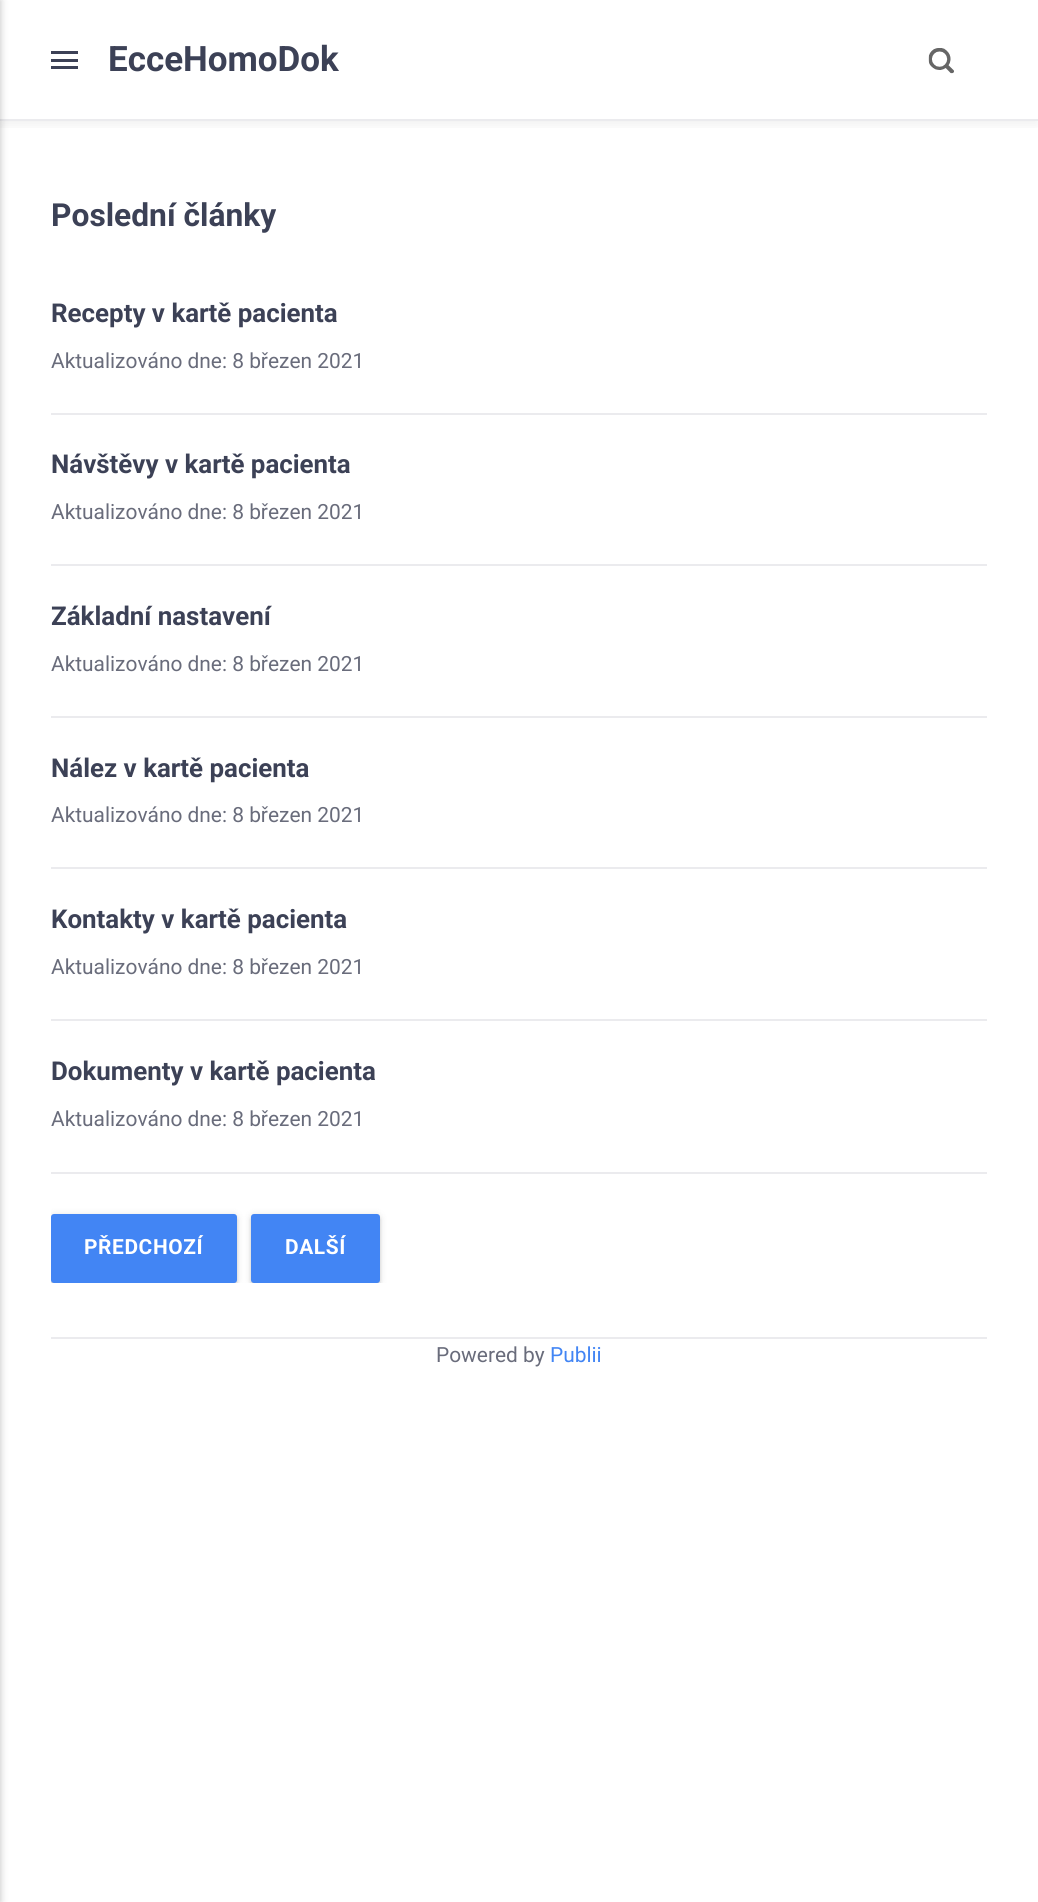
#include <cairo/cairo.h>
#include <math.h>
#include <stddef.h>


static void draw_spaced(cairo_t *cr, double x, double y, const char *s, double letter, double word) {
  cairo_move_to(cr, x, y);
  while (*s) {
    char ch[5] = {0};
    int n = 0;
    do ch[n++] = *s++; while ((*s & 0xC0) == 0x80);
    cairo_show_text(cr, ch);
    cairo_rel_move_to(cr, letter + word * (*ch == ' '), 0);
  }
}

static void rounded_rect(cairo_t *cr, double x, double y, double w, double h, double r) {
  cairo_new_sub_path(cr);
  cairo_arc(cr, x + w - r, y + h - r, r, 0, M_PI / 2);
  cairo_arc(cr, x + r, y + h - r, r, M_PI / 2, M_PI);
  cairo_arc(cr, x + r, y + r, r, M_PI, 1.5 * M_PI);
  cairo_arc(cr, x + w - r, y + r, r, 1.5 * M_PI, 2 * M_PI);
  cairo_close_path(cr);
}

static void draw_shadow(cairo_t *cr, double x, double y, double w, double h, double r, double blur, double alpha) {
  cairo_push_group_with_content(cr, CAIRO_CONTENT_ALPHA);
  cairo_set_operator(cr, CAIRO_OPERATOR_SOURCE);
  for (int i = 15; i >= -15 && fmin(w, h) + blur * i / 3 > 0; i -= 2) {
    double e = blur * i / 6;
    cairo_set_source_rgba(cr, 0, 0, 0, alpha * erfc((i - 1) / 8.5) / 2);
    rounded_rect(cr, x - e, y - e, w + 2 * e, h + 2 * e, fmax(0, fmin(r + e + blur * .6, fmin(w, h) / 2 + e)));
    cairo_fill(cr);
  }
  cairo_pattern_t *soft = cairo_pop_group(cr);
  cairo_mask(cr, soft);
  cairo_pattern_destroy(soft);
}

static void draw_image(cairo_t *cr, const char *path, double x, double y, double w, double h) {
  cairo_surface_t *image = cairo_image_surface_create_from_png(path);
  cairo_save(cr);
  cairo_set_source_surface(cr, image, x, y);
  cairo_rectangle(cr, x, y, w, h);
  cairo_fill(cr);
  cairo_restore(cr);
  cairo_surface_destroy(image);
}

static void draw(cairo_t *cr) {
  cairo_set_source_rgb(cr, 1, 1, 1);
  cairo_paint(cr);
  cairo_save(cr);
  cairo_rectangle(cr, 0, 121, 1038, 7);
  cairo_clip(cr);
  cairo_set_source_rgb(cr, 0, 0, 0);
  draw_shadow(cr, 0, 5, 1038, 120, 0, 6, 0.06);
  cairo_restore(cr);
  cairo_set_source_rgb(cr, 235 / 255.0, 235 / 255.0, 238 / 255.0);
  cairo_rectangle(cr, 0, 119, 1038, 2);
  cairo_fill(cr);
  cairo_set_source_rgb(cr, 0, 0, 0);
  draw_shadow(cr, -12, 0, 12, 1902, 0, 4, 0.25);
  cairo_set_source_rgb(cr, 60 / 255.0, 65 / 255.0, 86 / 255.0);
  cairo_rectangle(cr, 51, 59, 27, 3);
  cairo_fill(cr);
  cairo_rectangle(cr, 51, 51, 27, 3);
  cairo_fill(cr);
  cairo_rectangle(cr, 51, 66, 27, 3);
  cairo_fill(cr);
  draw_image(cr, "images/1.png", 928, 48, 26, 26);
  cairo_set_source_rgb(cr, 235 / 255.0, 235 / 255.0, 238 / 255.0);
  cairo_rectangle(cr, 51, 413, 936, 2);
  cairo_fill(cr);
  cairo_rectangle(cr, 51, 564, 936, 2);
  cairo_fill(cr);
  cairo_rectangle(cr, 51, 716, 936, 2);
  cairo_fill(cr);
  cairo_rectangle(cr, 51, 867, 936, 2);
  cairo_fill(cr);
  cairo_rectangle(cr, 51, 1019, 936, 2);
  cairo_fill(cr);
  cairo_rectangle(cr, 51, 1172, 936, 2);
  cairo_fill(cr);
  cairo_save(cr);
  cairo_rectangle(cr, 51, 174, 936, 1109);
  cairo_clip(cr);
  cairo_set_source_rgb(cr, 0, 0, 0);
  draw_shadow(cr, 51, 1215, 186, 69, 3, 4, 0.12);
  draw_shadow(cr, 51, 1217, 186, 69, 3, 1.5, 0.14);
  cairo_restore(cr);
  cairo_set_source_rgb(cr, 66 / 255.0, 133 / 255.0, 244 / 255.0);
  rounded_rect(cr, 51, 1214, 186, 69, 3);
  cairo_fill(cr);
  cairo_save(cr);
  cairo_rectangle(cr, 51, 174, 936, 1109);
  cairo_clip(cr);
  cairo_set_source_rgb(cr, 0, 0, 0);
  draw_shadow(cr, 251, 1215, 129, 69, 3, 4, 0.12);
  draw_shadow(cr, 251, 1217, 129, 69, 3, 1.5, 0.14);
  cairo_restore(cr);
  rounded_rect(cr, 251, 1214, 129, 69, 3);
  cairo_fill(cr);
  cairo_set_source_rgb(cr, 235 / 255.0, 235 / 255.0, 238 / 255.0);
  cairo_rectangle(cr, 51, 1337, 936, 2);
  cairo_fill(cr);
  cairo_select_font_face(cr, "Roboto", CAIRO_FONT_SLANT_NORMAL, CAIRO_FONT_WEIGHT_BOLD);
  cairo_set_font_size(cr, 35);
  cairo_set_source_rgb(cr, 60 / 255.0, 65 / 255.0, 86 / 255.0);
  cairo_move_to(cr, 108, 71);
  cairo_show_text(cr, "EcceHomoDok");
  cairo_set_font_size(cr, 31.75);
  cairo_move_to(cr, 51, 226);
  cairo_show_text(cr, "Poslední články");
  cairo_set_font_size(cr, 25.9);
  cairo_move_to(cr, 51, 322);
  cairo_show_text(cr, "Recepty v kartě pacienta");
  cairo_select_font_face(cr, "Roboto", CAIRO_FONT_SLANT_NORMAL, CAIRO_FONT_WEIGHT_NORMAL);
  cairo_set_font_size(cr, 20.9);
  cairo_set_source_rgb(cr, 105 / 255.0, 108 / 255.0, 123 / 255.0);
  cairo_move_to(cr, 51, 368);
  cairo_show_text(cr, "Aktualizováno dne: 8 březen 2021");
  cairo_select_font_face(cr, "Roboto", CAIRO_FONT_SLANT_NORMAL, CAIRO_FONT_WEIGHT_BOLD);
  cairo_set_font_size(cr, 25.9);
  cairo_set_source_rgb(cr, 60 / 255.0, 65 / 255.0, 86 / 255.0);
  cairo_move_to(cr, 51, 473);
  cairo_show_text(cr, "Návštěvy v kartě pacienta");
  cairo_select_font_face(cr, "Roboto", CAIRO_FONT_SLANT_NORMAL, CAIRO_FONT_WEIGHT_NORMAL);
  cairo_set_font_size(cr, 20.9);
  cairo_set_source_rgb(cr, 105 / 255.0, 108 / 255.0, 123 / 255.0);
  cairo_move_to(cr, 51, 519);
  cairo_show_text(cr, "Aktualizováno dne: 8 březen 2021");
  cairo_select_font_face(cr, "Roboto", CAIRO_FONT_SLANT_NORMAL, CAIRO_FONT_WEIGHT_BOLD);
  cairo_set_font_size(cr, 25.9);
  cairo_set_source_rgb(cr, 60 / 255.0, 65 / 255.0, 86 / 255.0);
  cairo_move_to(cr, 51, 625);
  cairo_show_text(cr, "Základní nastavení");
  cairo_select_font_face(cr, "Roboto", CAIRO_FONT_SLANT_NORMAL, CAIRO_FONT_WEIGHT_NORMAL);
  cairo_set_font_size(cr, 20.9);
  cairo_set_source_rgb(cr, 105 / 255.0, 108 / 255.0, 123 / 255.0);
  cairo_move_to(cr, 51, 671);
  cairo_show_text(cr, "Aktualizováno dne: 8 březen 2021");
  cairo_select_font_face(cr, "Roboto", CAIRO_FONT_SLANT_NORMAL, CAIRO_FONT_WEIGHT_BOLD);
  cairo_set_font_size(cr, 25.9);
  cairo_set_source_rgb(cr, 60 / 255.0, 65 / 255.0, 86 / 255.0);
  cairo_move_to(cr, 51, 777);
  cairo_show_text(cr, "Nález v kartě pacienta");
  cairo_select_font_face(cr, "Roboto", CAIRO_FONT_SLANT_NORMAL, CAIRO_FONT_WEIGHT_NORMAL);
  cairo_set_font_size(cr, 20.9);
  cairo_set_source_rgb(cr, 105 / 255.0, 108 / 255.0, 123 / 255.0);
  cairo_move_to(cr, 51, 822);
  cairo_show_text(cr, "Aktualizováno dne: 8 březen 2021");
  cairo_select_font_face(cr, "Roboto", CAIRO_FONT_SLANT_NORMAL, CAIRO_FONT_WEIGHT_BOLD);
  cairo_set_font_size(cr, 25.9);
  cairo_set_source_rgb(cr, 60 / 255.0, 65 / 255.0, 86 / 255.0);
  cairo_move_to(cr, 51, 928);
  cairo_show_text(cr, "Kontakty v kartě pacienta");
  cairo_select_font_face(cr, "Roboto", CAIRO_FONT_SLANT_NORMAL, CAIRO_FONT_WEIGHT_NORMAL);
  cairo_set_font_size(cr, 20.9);
  cairo_set_source_rgb(cr, 105 / 255.0, 108 / 255.0, 123 / 255.0);
  cairo_move_to(cr, 51, 974);
  cairo_show_text(cr, "Aktualizováno dne: 8 březen 2021");
  cairo_select_font_face(cr, "Roboto", CAIRO_FONT_SLANT_NORMAL, CAIRO_FONT_WEIGHT_BOLD);
  cairo_set_font_size(cr, 25.9);
  cairo_set_source_rgb(cr, 60 / 255.0, 65 / 255.0, 86 / 255.0);
  cairo_move_to(cr, 51, 1080);
  cairo_show_text(cr, "Dokumenty v kartě pacienta");
  cairo_select_font_face(cr, "Roboto", CAIRO_FONT_SLANT_NORMAL, CAIRO_FONT_WEIGHT_NORMAL);
  cairo_set_font_size(cr, 20.9);
  cairo_set_source_rgb(cr, 105 / 255.0, 108 / 255.0, 123 / 255.0);
  cairo_move_to(cr, 51, 1126);
  cairo_show_text(cr, "Aktualizováno dne: 8 březen 2021");
  cairo_select_font_face(cr, "Roboto", CAIRO_FONT_SLANT_NORMAL, CAIRO_FONT_WEIGHT_BOLD);
  cairo_set_source_rgb(cr, 1, 1, 1);
  draw_spaced(cr, 84, 1254, "PŘEDCHOZÍ", 0.6, 0);
  draw_spaced(cr, 285, 1254, "DALŠÍ", 0.6, 0);
  cairo_select_font_face(cr, "Roboto", CAIRO_FONT_SLANT_NORMAL, CAIRO_FONT_WEIGHT_NORMAL);
  cairo_set_source_rgb(cr, 105 / 255.0, 108 / 255.0, 123 / 255.0);
  cairo_move_to(cr, 436, 1362);
  cairo_show_text(cr, "Powered by");
  cairo_set_source_rgb(cr, 66 / 255.0, 133 / 255.0, 244 / 255.0);
  cairo_move_to(cr, 550, 1362);
  cairo_show_text(cr, "Publii");
}

int main(void) {
  cairo_surface_t *surface = cairo_image_surface_create(CAIRO_FORMAT_RGB24, 1038, 1902);
  cairo_t *cr = cairo_create(surface);
  cairo_font_options_t *options = cairo_font_options_create();
  cairo_font_options_set_hint_metrics(options, CAIRO_HINT_METRICS_OFF);
  cairo_font_options_set_hint_style(options, CAIRO_HINT_STYLE_NONE);
  cairo_set_font_options(cr, options);
  cairo_set_miter_limit(cr, 4);
  draw(cr);
  cairo_surface_write_to_png(surface, "out.png");
  cairo_font_options_destroy(options);
  cairo_destroy(cr);
  cairo_surface_destroy(surface);
  return 0;
}
